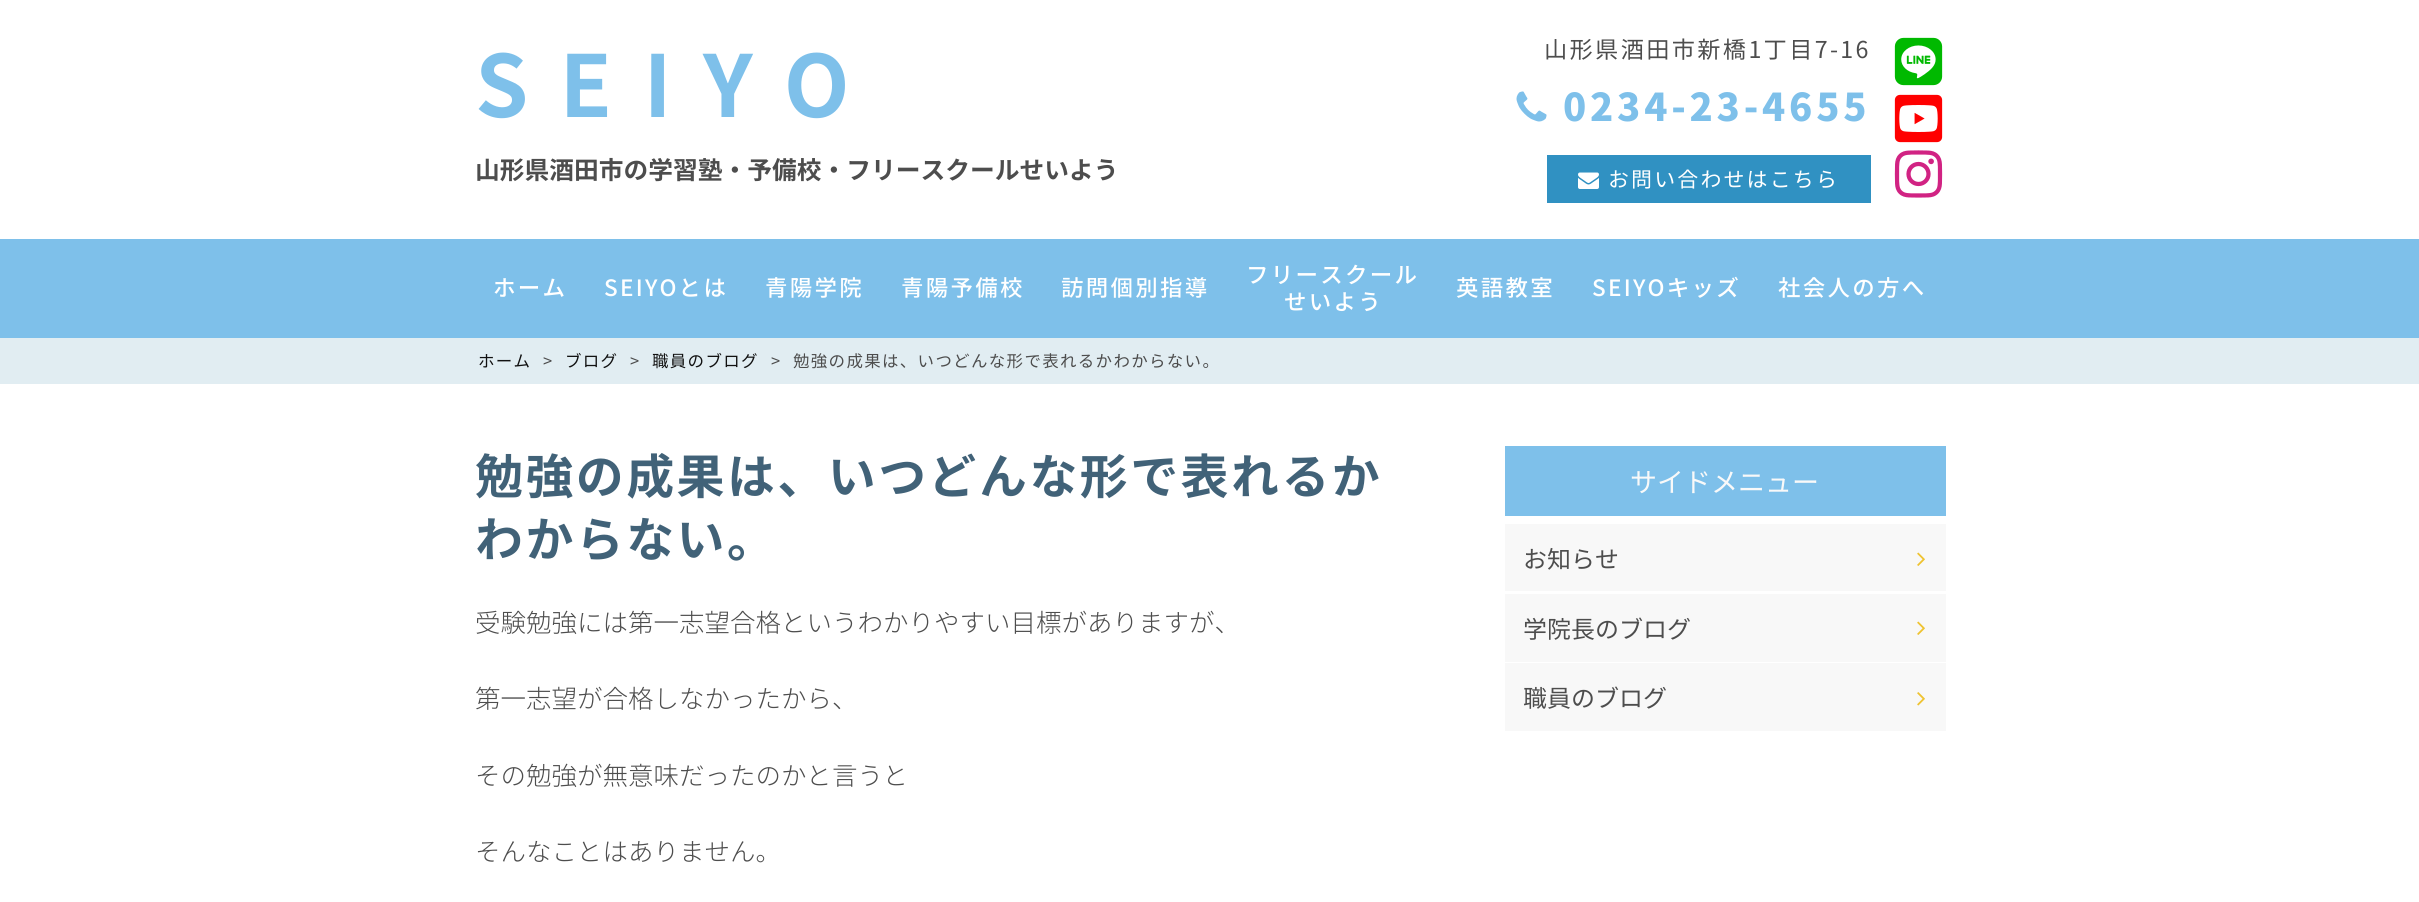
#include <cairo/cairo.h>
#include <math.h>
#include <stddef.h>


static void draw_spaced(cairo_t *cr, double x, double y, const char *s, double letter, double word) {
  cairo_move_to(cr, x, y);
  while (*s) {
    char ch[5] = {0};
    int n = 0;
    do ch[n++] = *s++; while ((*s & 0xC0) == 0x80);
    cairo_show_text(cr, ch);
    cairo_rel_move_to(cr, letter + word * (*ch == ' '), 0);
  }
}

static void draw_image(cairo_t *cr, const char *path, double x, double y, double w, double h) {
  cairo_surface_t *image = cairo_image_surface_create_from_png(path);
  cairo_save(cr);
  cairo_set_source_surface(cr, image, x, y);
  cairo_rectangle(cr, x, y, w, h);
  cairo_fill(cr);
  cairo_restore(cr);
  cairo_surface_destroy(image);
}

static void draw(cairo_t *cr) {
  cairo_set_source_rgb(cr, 1, 1, 1);
  cairo_paint(cr);
  draw_image(cr, "images/1.png", 1516, 91, 31, 31);
  cairo_set_source_rgb(cr, 48 / 255.0, 145 / 255.0, 194 / 255.0);
  cairo_rectangle(cr, 1547, 155, 324, 48);
  cairo_fill(cr);
  draw_image(cr, "images/2.png", 1578, 172, 21, 17);
  draw_image(cr, "images/3.png", 1894, 37, 49, 49);
  draw_image(cr, "images/4.png", 1894, 94, 49, 49);
  draw_image(cr, "images/5.png", 1894, 150, 49, 48);
  cairo_set_source_rgb(cr, 126 / 255.0, 192 / 255.0, 234 / 255.0);
  cairo_rectangle(cr, 0, 239, 2419, 99);
  cairo_fill(cr);
  cairo_set_source_rgb(cr, 225 / 255.0, 237 / 255.0, 242 / 255.0);
  cairo_rectangle(cr, 0, 338, 2419, 46);
  cairo_fill(cr);
  cairo_set_source_rgb(cr, 126 / 255.0, 192 / 255.0, 234 / 255.0);
  cairo_rectangle(cr, 1505, 446, 441, 70);
  cairo_fill(cr);
  cairo_set_source_rgb(cr, 248 / 255.0, 248 / 255.0, 248 / 255.0);
  cairo_rectangle(cr, 1505, 524, 441, 67);
  cairo_fill(cr);
  draw_image(cr, "images/6.png", 1917, 552, 8, 14);
  cairo_rectangle(cr, 1505, 594, 441, 68);
  cairo_fill(cr);
  draw_image(cr, "images/6.png", 1917, 621, 8, 14);
  cairo_rectangle(cr, 1505, 663, 441, 68);
  cairo_fill(cr);
  draw_image(cr, "images/7.png", 1917, 692, 8, 14);
  cairo_select_font_face(cr, "Noto Sans JP", CAIRO_FONT_SLANT_NORMAL, CAIRO_FONT_WEIGHT_BOLD);
  cairo_set_font_size(cr, 85.5);
  cairo_set_source_rgb(cr, 126 / 255.0, 192 / 255.0, 234 / 255.0);
  draw_spaced(cr, 475, 117, "SEIYO", 31.25, 0);
  cairo_set_font_size(cr, 24.75);
  cairo_set_source_rgb(cr, 77 / 255.0, 77 / 255.0, 77 / 255.0);
  cairo_move_to(cr, 475, 179);
  cairo_show_text(cr, "山形県酒田市の学習塾・予備校・フリースクールせいよう");
  cairo_select_font_face(cr, "Noto Sans JP", CAIRO_FONT_SLANT_NORMAL, CAIRO_FONT_WEIGHT_NORMAL);
  cairo_set_font_size(cr, 23.25);
  draw_spaced(cr, 1544, 58, "山形県酒田市新橋1丁目7-16", 2.3, 0);
  cairo_select_font_face(cr, "Noto Sans JP Black", CAIRO_FONT_SLANT_NORMAL, CAIRO_FONT_WEIGHT_NORMAL);
  cairo_set_font_size(cr, 38.25);
  cairo_set_source_rgb(cr, 126 / 255.0, 192 / 255.0, 234 / 255.0);
  draw_spaced(cr, 1563, 121, "0234-23-4655", 3.75, 0);
  cairo_select_font_face(cr, "Noto Sans JP", CAIRO_FONT_SLANT_NORMAL, CAIRO_FONT_WEIGHT_NORMAL);
  cairo_set_font_size(cr, 21);
  cairo_set_source_rgb(cr, 1, 1, 1);
  draw_spaced(cr, 1608, 187, "お問い合わせはこちら", 2.1, 0);
  cairo_select_font_face(cr, "Noto Sans JP Medium", CAIRO_FONT_SLANT_NORMAL, CAIRO_FONT_WEIGHT_NORMAL);
  cairo_set_font_size(cr, 22.5);
  draw_spaced(cr, 493, 296, "ホーム", 2.25, 0);
  draw_spaced(cr, 604, 296, "SEIYOとは", 2.25, 0);
  draw_spaced(cr, 765, 296, "青陽学院", 2.25, 0);
  draw_spaced(cr, 901, 296, "青陽予備校", 2.25, 0);
  draw_spaced(cr, 1061, 296, "訪問個別指導", 2.25, 0);
  draw_spaced(cr, 1246, 283, "フリースクール", 2.25, 0);
  draw_spaced(cr, 1284, 310, "せいよう", 2.25, 0);
  draw_spaced(cr, 1456, 296, "英語教室", 2.25, 0);
  draw_spaced(cr, 1592, 296, "SEIYOキッズ", 2.25, 0);
  draw_spaced(cr, 1778, 296, "社会人の方へ", 2.25, 0);
  cairo_select_font_face(cr, "Noto Sans JP", CAIRO_FONT_SLANT_NORMAL, CAIRO_FONT_WEIGHT_NORMAL);
  cairo_set_font_size(cr, 16.5);
  cairo_set_source_rgb(cr, 17 / 255.0, 17 / 255.0, 17 / 255.0);
  draw_spaced(cr, 478, 367, "ホーム", 1.3, 0);
  cairo_set_source_rgb(cr, 77 / 255.0, 77 / 255.0, 77 / 255.0);
  draw_spaced(cr, 543, 367, ">", 1.3, 0);
  cairo_set_source_rgb(cr, 17 / 255.0, 17 / 255.0, 17 / 255.0);
  draw_spaced(cr, 565, 367, "ブログ", 1.3, 0);
  cairo_set_source_rgb(cr, 77 / 255.0, 77 / 255.0, 77 / 255.0);
  draw_spaced(cr, 630, 367, ">", 1.3, 0);
  cairo_set_source_rgb(cr, 17 / 255.0, 17 / 255.0, 17 / 255.0);
  draw_spaced(cr, 652, 367, "職員のブログ", 1.3, 0);
  cairo_set_source_rgb(cr, 77 / 255.0, 77 / 255.0, 77 / 255.0);
  draw_spaced(cr, 771, 367, ">", 1.3, 0);
  draw_spaced(cr, 793, 367, "勉強の成果は、いつどんな形で表れるかわからない。", 1.3, 0);
  cairo_select_font_face(cr, "Noto Sans JP", CAIRO_FONT_SLANT_NORMAL, CAIRO_FONT_WEIGHT_BOLD);
  cairo_set_font_size(cr, 48);
  cairo_set_source_rgb(cr, 65 / 255.0, 98 / 255.0, 120 / 255.0);
  draw_spaced(cr, 475, 494, "勉強の成果は、いつどんな形で表れるか", 2.4, 0);
  draw_spaced(cr, 475, 557, "わからない。", 2.4, 0);
  cairo_select_font_face(cr, "Noto Sans JP Light", CAIRO_FONT_SLANT_NORMAL, CAIRO_FONT_WEIGHT_NORMAL);
  cairo_set_font_size(cr, 25.5);
  cairo_set_source_rgb(cr, 77 / 255.0, 77 / 255.0, 77 / 255.0);
  cairo_move_to(cr, 475, 632);
  cairo_show_text(cr, "受験勉強には第一志望合格というわかりやすい目標がありますが、");
  cairo_move_to(cr, 475, 708);
  cairo_show_text(cr, "第一志望が合格しなかったから、");
  cairo_move_to(cr, 475, 785);
  cairo_show_text(cr, "その勉強が無意味だったのかと言うと");
  cairo_move_to(cr, 475, 861);
  cairo_show_text(cr, "そんなことはありません。");
  cairo_select_font_face(cr, "Noto Sans JP", CAIRO_FONT_SLANT_NORMAL, CAIRO_FONT_WEIGHT_NORMAL);
  cairo_set_font_size(cr, 27);
  cairo_set_source_rgb(cr, 249 / 255.0, 249 / 255.0, 249 / 255.0);
  cairo_move_to(cr, 1630, 492);
  cairo_show_text(cr, "サイドメニュー");
  cairo_set_font_size(cr, 24);
  cairo_set_source_rgb(cr, 77 / 255.0, 77 / 255.0, 77 / 255.0);
  cairo_move_to(cr, 1523, 568);
  cairo_show_text(cr, "お知らせ");
  cairo_move_to(cr, 1523, 638);
  cairo_show_text(cr, "学院長のブログ");
  cairo_move_to(cr, 1523, 707);
  cairo_show_text(cr, "職員のブログ");
}

int main(void) {
  cairo_surface_t *surface = cairo_image_surface_create(CAIRO_FORMAT_RGB24, 2419, 902);
  cairo_t *cr = cairo_create(surface);
  cairo_font_options_t *options = cairo_font_options_create();
  cairo_font_options_set_hint_metrics(options, CAIRO_HINT_METRICS_OFF);
  cairo_font_options_set_hint_style(options, CAIRO_HINT_STYLE_NONE);
  cairo_set_font_options(cr, options);
  cairo_set_miter_limit(cr, 4);
  draw(cr);
  cairo_surface_write_to_png(surface, "out.png");
  cairo_font_options_destroy(options);
  cairo_destroy(cr);
  cairo_surface_destroy(surface);
  return 0;
}
